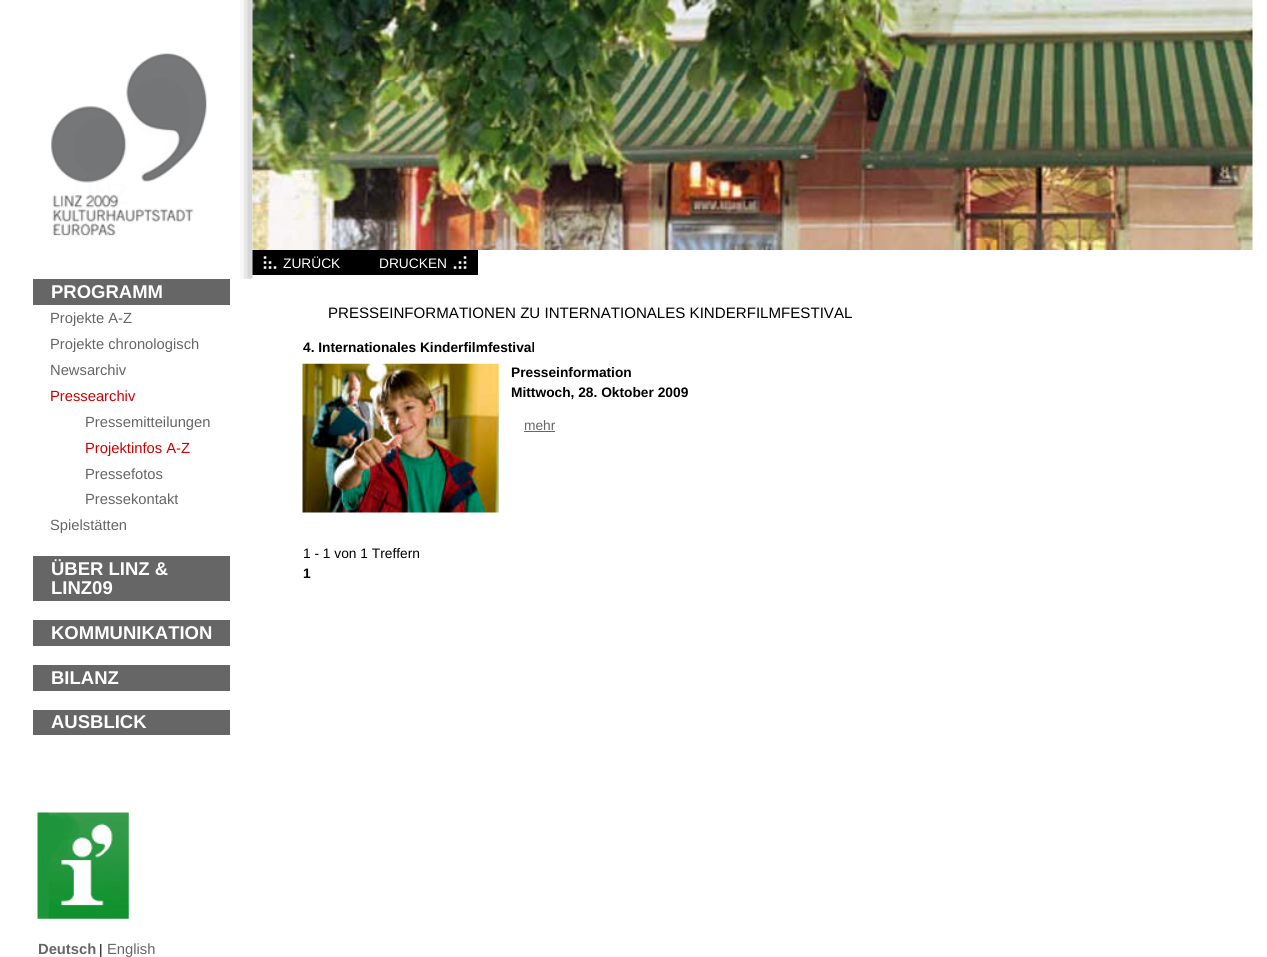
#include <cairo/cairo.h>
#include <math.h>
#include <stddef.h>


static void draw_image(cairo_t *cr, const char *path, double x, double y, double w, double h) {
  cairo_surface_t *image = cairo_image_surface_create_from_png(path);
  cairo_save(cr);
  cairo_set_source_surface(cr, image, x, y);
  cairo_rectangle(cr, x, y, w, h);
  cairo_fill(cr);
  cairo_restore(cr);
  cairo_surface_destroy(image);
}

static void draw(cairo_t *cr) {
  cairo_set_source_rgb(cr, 1, 1, 1);
  cairo_paint(cr);
  draw_image(cr, "images/1.png", 51, 0, 202, 279);
  draw_image(cr, "images/2.png", 252, 0, 1001, 250);
  cairo_set_source_rgb(cr, 0, 0, 0);
  cairo_rectangle(cr, 277, 250, 201, 25);
  cairo_fill(cr);
  draw_image(cr, "images/3.png", 252, 250, 25, 25);
  draw_image(cr, "images/4.png", 453, 256, 14, 13);
  cairo_set_source_rgb(cr, 102 / 255.0, 102 / 255.0, 102 / 255.0);
  cairo_rectangle(cr, 33, 279, 197, 26);
  cairo_fill(cr);
  cairo_rectangle(cr, 33, 556, 197, 45);
  cairo_fill(cr);
  cairo_rectangle(cr, 33, 620, 197, 26);
  cairo_fill(cr);
  cairo_rectangle(cr, 33, 665, 197, 26);
  cairo_fill(cr);
  cairo_rectangle(cr, 33, 710, 197, 25);
  cairo_fill(cr);
  draw_image(cr, "images/5.png", 37, 812, 92, 107);
  draw_image(cr, "images/6.png", 302, 363, 197, 150);
  cairo_rectangle(cr, 524, 431, 31, 1);
  cairo_fill(cr);
  cairo_select_font_face(cr, "Liberation Sans", CAIRO_FONT_SLANT_NORMAL, CAIRO_FONT_WEIGHT_NORMAL);
  cairo_set_font_size(cr, 13.75);
  cairo_set_source_rgb(cr, 1, 1, 1);
  cairo_move_to(cr, 283, 268);
  cairo_show_text(cr, "ZURÜCK");
  cairo_move_to(cr, 379, 268);
  cairo_show_text(cr, "DRUCKEN");
  cairo_select_font_face(cr, "Liberation Sans", CAIRO_FONT_SLANT_NORMAL, CAIRO_FONT_WEIGHT_BOLD);
  cairo_set_font_size(cr, 18.5);
  cairo_move_to(cr, 51, 298);
  cairo_show_text(cr, "PROGRAMM");
  cairo_select_font_face(cr, "Liberation Sans", CAIRO_FONT_SLANT_NORMAL, CAIRO_FONT_WEIGHT_NORMAL);
  cairo_set_font_size(cr, 14.75);
  cairo_set_source_rgb(cr, 102 / 255.0, 102 / 255.0, 102 / 255.0);
  cairo_move_to(cr, 50, 323);
  cairo_show_text(cr, "Projekte A-Z");
  cairo_move_to(cr, 50, 349);
  cairo_show_text(cr, "Projekte chronologisch");
  cairo_move_to(cr, 50, 375);
  cairo_show_text(cr, "Newsarchiv");
  cairo_set_source_rgb(cr, 204 / 255.0, 0, 0);
  cairo_move_to(cr, 50, 401);
  cairo_show_text(cr, "Pressearchiv");
  cairo_set_source_rgb(cr, 102 / 255.0, 102 / 255.0, 102 / 255.0);
  cairo_move_to(cr, 85, 427);
  cairo_show_text(cr, "Pressemitteilungen");
  cairo_set_source_rgb(cr, 204 / 255.0, 0, 0);
  cairo_move_to(cr, 85, 453);
  cairo_show_text(cr, "Projektinfos A-Z");
  cairo_set_source_rgb(cr, 102 / 255.0, 102 / 255.0, 102 / 255.0);
  cairo_move_to(cr, 85, 479);
  cairo_show_text(cr, "Pressefotos");
  cairo_move_to(cr, 85, 504);
  cairo_show_text(cr, "Pressekontakt");
  cairo_move_to(cr, 50, 530);
  cairo_show_text(cr, "Spielstätten");
  cairo_select_font_face(cr, "Liberation Sans", CAIRO_FONT_SLANT_NORMAL, CAIRO_FONT_WEIGHT_BOLD);
  cairo_set_font_size(cr, 18.5);
  cairo_set_source_rgb(cr, 1, 1, 1);
  cairo_move_to(cr, 51, 575);
  cairo_show_text(cr, "ÜBER LINZ &");
  cairo_move_to(cr, 51, 594);
  cairo_show_text(cr, "LINZ09");
  cairo_move_to(cr, 51, 639);
  cairo_show_text(cr, "KOMMUNIKATION");
  cairo_move_to(cr, 51, 684);
  cairo_show_text(cr, "BILANZ");
  cairo_move_to(cr, 51, 728);
  cairo_show_text(cr, "AUSBLICK");
  cairo_set_font_size(cr, 14.75);
  cairo_set_source_rgb(cr, 102 / 255.0, 102 / 255.0, 102 / 255.0);
  cairo_move_to(cr, 38, 954);
  cairo_show_text(cr, "Deutsch");
  cairo_select_font_face(cr, "Liberation Sans", CAIRO_FONT_SLANT_NORMAL, CAIRO_FONT_WEIGHT_NORMAL);
  cairo_set_font_size(cr, 13.75);
  cairo_set_source_rgb(cr, 0, 0, 0);
  cairo_move_to(cr, 99, 954);
  cairo_show_text(cr, "|");
  cairo_set_font_size(cr, 14.75);
  cairo_set_source_rgb(cr, 102 / 255.0, 102 / 255.0, 102 / 255.0);
  cairo_move_to(cr, 107, 954);
  cairo_show_text(cr, "English");
  cairo_set_font_size(cr, 15.1);
  cairo_set_source_rgb(cr, 0, 0, 0);
  cairo_move_to(cr, 328, 318);
  cairo_show_text(cr, "PRESSEINFORMATIONEN ZU INTERNATIONALES KINDERFILMFESTIVAL");
  cairo_select_font_face(cr, "Liberation Sans", CAIRO_FONT_SLANT_NORMAL, CAIRO_FONT_WEIGHT_BOLD);
  cairo_set_font_size(cr, 13.75);
  cairo_move_to(cr, 303, 352);
  cairo_show_text(cr, "4. Internationales Kinderfilmfestival");
  cairo_move_to(cr, 511, 377);
  cairo_show_text(cr, "Presseinformation");
  cairo_move_to(cr, 511, 397);
  cairo_show_text(cr, "Mittwoch, 28. Oktober 2009");
  cairo_select_font_face(cr, "Liberation Sans", CAIRO_FONT_SLANT_NORMAL, CAIRO_FONT_WEIGHT_NORMAL);
  cairo_set_source_rgb(cr, 102 / 255.0, 102 / 255.0, 102 / 255.0);
  cairo_move_to(cr, 524, 430);
  cairo_show_text(cr, "mehr");
  cairo_set_source_rgb(cr, 0, 0, 0);
  cairo_move_to(cr, 303, 558);
  cairo_show_text(cr, "1 - 1 von 1 Treffern");
  cairo_select_font_face(cr, "Liberation Sans", CAIRO_FONT_SLANT_NORMAL, CAIRO_FONT_WEIGHT_BOLD);
  cairo_move_to(cr, 303, 578);
  cairo_show_text(cr, "1");
}

int main(void) {
  cairo_surface_t *surface = cairo_image_surface_create(CAIRO_FORMAT_RGB24, 1267, 957);
  cairo_t *cr = cairo_create(surface);
  cairo_font_options_t *options = cairo_font_options_create();
  cairo_font_options_set_hint_metrics(options, CAIRO_HINT_METRICS_OFF);
  cairo_font_options_set_hint_style(options, CAIRO_HINT_STYLE_NONE);
  cairo_set_font_options(cr, options);
  cairo_set_miter_limit(cr, 4);
  draw(cr);
  cairo_surface_write_to_png(surface, "out.png");
  cairo_font_options_destroy(options);
  cairo_destroy(cr);
  cairo_surface_destroy(surface);
  return 0;
}
